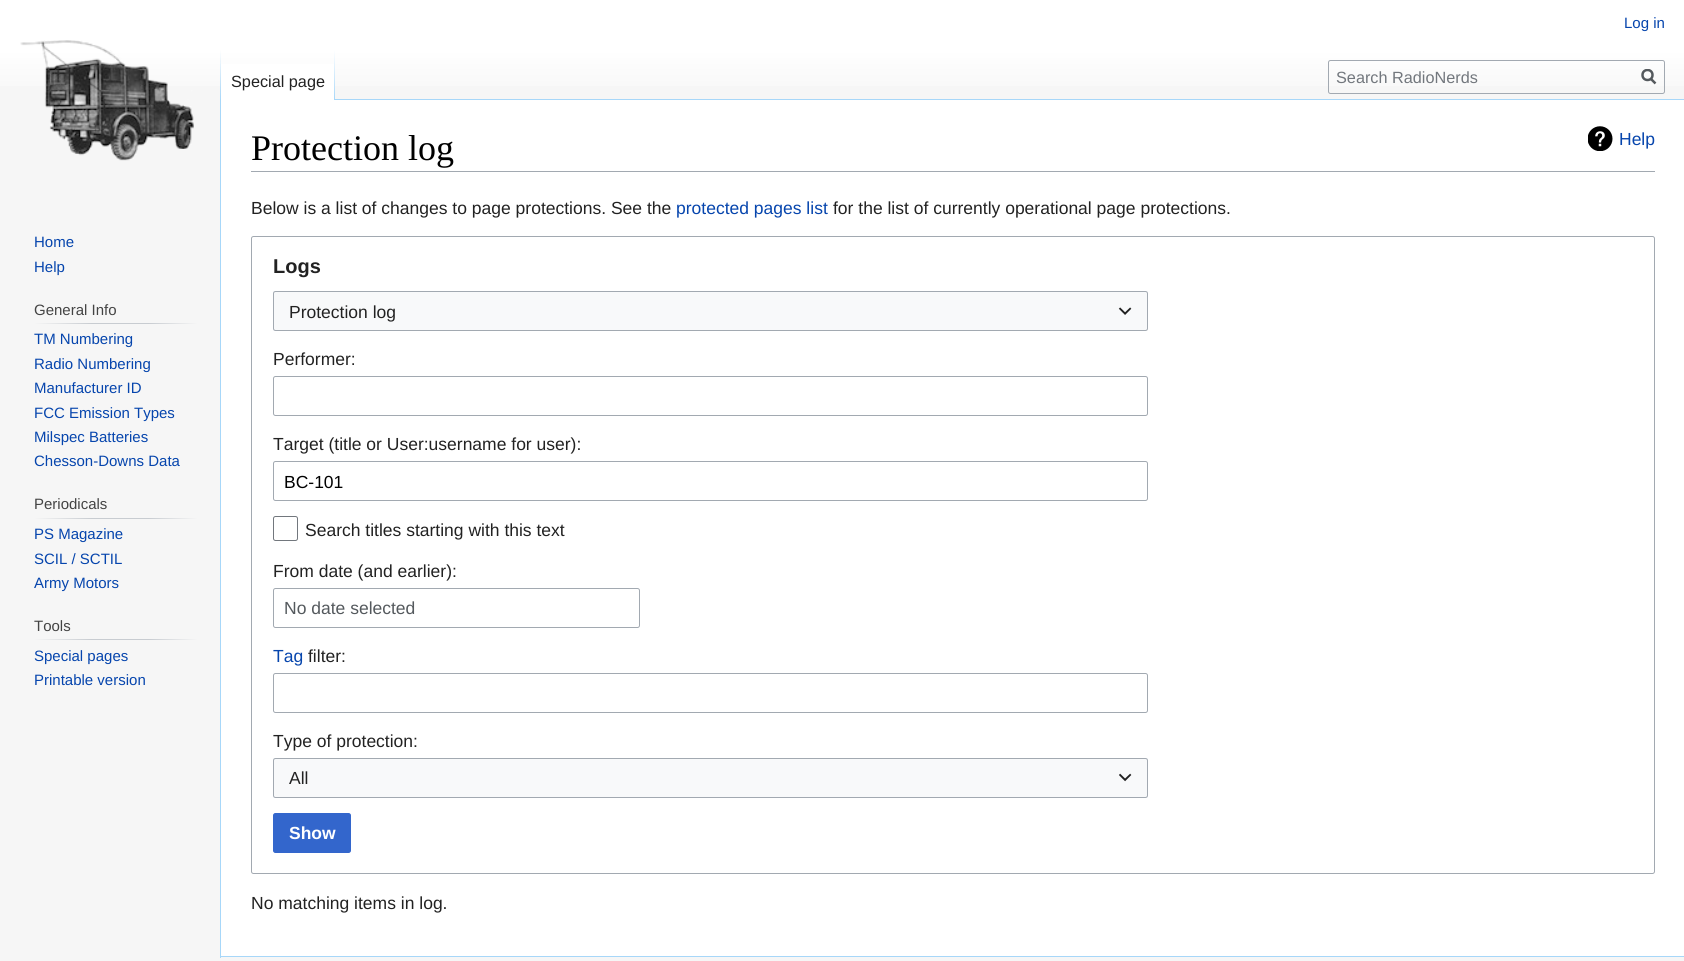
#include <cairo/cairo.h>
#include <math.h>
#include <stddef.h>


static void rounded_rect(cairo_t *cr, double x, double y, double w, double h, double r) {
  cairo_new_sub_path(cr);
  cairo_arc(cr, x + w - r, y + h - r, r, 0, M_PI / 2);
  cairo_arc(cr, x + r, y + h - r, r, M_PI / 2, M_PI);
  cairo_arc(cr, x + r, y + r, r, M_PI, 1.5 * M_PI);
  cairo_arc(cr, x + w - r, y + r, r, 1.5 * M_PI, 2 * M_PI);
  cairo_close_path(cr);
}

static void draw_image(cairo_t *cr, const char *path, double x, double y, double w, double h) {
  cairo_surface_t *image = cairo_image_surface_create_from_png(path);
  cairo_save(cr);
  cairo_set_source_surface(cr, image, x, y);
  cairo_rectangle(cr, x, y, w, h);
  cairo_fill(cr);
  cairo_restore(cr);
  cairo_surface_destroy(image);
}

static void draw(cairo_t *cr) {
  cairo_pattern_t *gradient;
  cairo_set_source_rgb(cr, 246 / 255.0, 246 / 255.0, 246 / 255.0);
  cairo_paint(cr);
  gradient = cairo_pattern_create_linear(843, 0, 843, 100);
  cairo_pattern_add_color_stop_rgba(gradient, 0.5, 1, 1, 1, 1);
  cairo_pattern_add_color_stop_rgba(gradient, 1, 246 / 255.0, 246 / 255.0, 246 / 255.0, 1);
  cairo_set_source(cr, gradient);
  cairo_pattern_destroy(gradient);
  cairo_rectangle(cr, 0, 0, 1684, 86);
  cairo_fill(cr);
  cairo_set_source_rgb(cr, 167 / 255.0, 215 / 255.0, 249 / 255.0);
  cairo_rectangle(cr, 220, 956, 1464, 1);
  cairo_fill(cr);
  cairo_rectangle(cr, 220, 99, 1, 859);
  cairo_fill(cr);
  gradient = cairo_pattern_create_linear(221, 50, 221, 100);
  cairo_pattern_add_color_stop_rgba(gradient, 0, 167 / 255.0, 215 / 255.0, 249 / 255.0, 0);
  cairo_pattern_add_color_stop_rgba(gradient, 1, 167 / 255.0, 215 / 255.0, 249 / 255.0, 1);
  cairo_set_source(cr, gradient);
  cairo_pattern_destroy(gradient);
  cairo_rectangle(cr, 220, 50, 1, 50);
  cairo_fill(cr);
  cairo_set_source_rgb(cr, 1, 1, 1);
  cairo_rectangle(cr, 221, 64, 113, 36);
  cairo_fill(cr);
  gradient = cairo_pattern_create_linear(334, 50, 334, 100);
  cairo_pattern_add_color_stop_rgba(gradient, 0, 1, 1, 1, 1);
  cairo_pattern_add_color_stop_rgba(gradient, 1, 167 / 255.0, 215 / 255.0, 249 / 255.0, 1);
  cairo_set_source(cr, gradient);
  cairo_pattern_destroy(gradient);
  cairo_rectangle(cr, 334, 50, 1, 50);
  cairo_fill(cr);
  rounded_rect(cr, 1328.5, 60.5, 336, 33, 2);
  cairo_set_source_rgb(cr, 162 / 255.0, 169 / 255.0, 177 / 255.0);
  cairo_set_line_width(cr, 1);
  cairo_stroke(cr);
  cairo_new_path(cr);
  cairo_move_to(cr, 1655.5, 83.5);
  cairo_line_to(cr, 1650.5, 78.5);
  cairo_set_source_rgb(cr, 84 / 255.0, 89 / 255.0, 93 / 255.0);
  cairo_set_line_width(cr, 2.5);
  cairo_stroke(cr);
  cairo_save(cr);
  cairo_rectangle(cr, 1641, 69, 15, 16);
  cairo_clip(cr);
  cairo_arc(cr, 1647.5, 75, 5, 0, 2 * M_PI);
  cairo_stroke(cr);
  cairo_restore(cr);
  draw_image(cr, "images/1.png", 20, 40, 174, 121);
  gradient = cairo_pattern_create_linear(34, 323, 198, 323);
  cairo_pattern_add_color_stop_rgba(gradient, 0, 246 / 255.0, 246 / 255.0, 246 / 255.0, 1);
  cairo_pattern_add_color_stop_rgba(gradient, 0.35, 200 / 255.0, 204 / 255.0, 209 / 255.0, 1);
  cairo_pattern_add_color_stop_rgba(gradient, 0.7, 200 / 255.0, 204 / 255.0, 209 / 255.0, 1);
  cairo_pattern_add_color_stop_rgba(gradient, 1, 246 / 255.0, 246 / 255.0, 246 / 255.0, 1);
  cairo_set_source(cr, gradient);
  cairo_pattern_destroy(gradient);
  cairo_rectangle(cr, 34, 323, 164, 1);
  cairo_fill(cr);
  gradient = cairo_pattern_create_linear(34, 518, 198, 518);
  cairo_pattern_add_color_stop_rgba(gradient, 0, 246 / 255.0, 246 / 255.0, 246 / 255.0, 1);
  cairo_pattern_add_color_stop_rgba(gradient, 0.35, 200 / 255.0, 204 / 255.0, 209 / 255.0, 1);
  cairo_pattern_add_color_stop_rgba(gradient, 0.7, 200 / 255.0, 204 / 255.0, 209 / 255.0, 1);
  cairo_pattern_add_color_stop_rgba(gradient, 1, 246 / 255.0, 246 / 255.0, 246 / 255.0, 1);
  cairo_set_source(cr, gradient);
  cairo_pattern_destroy(gradient);
  cairo_rectangle(cr, 34, 518, 164, 1);
  cairo_fill(cr);
  gradient = cairo_pattern_create_linear(34, 639, 198, 639);
  cairo_pattern_add_color_stop_rgba(gradient, 0, 246 / 255.0, 246 / 255.0, 246 / 255.0, 1);
  cairo_pattern_add_color_stop_rgba(gradient, 0.35, 200 / 255.0, 204 / 255.0, 209 / 255.0, 1);
  cairo_pattern_add_color_stop_rgba(gradient, 0.7, 200 / 255.0, 204 / 255.0, 209 / 255.0, 1);
  cairo_pattern_add_color_stop_rgba(gradient, 1, 246 / 255.0, 246 / 255.0, 246 / 255.0, 1);
  cairo_set_source(cr, gradient);
  cairo_pattern_destroy(gradient);
  cairo_rectangle(cr, 34, 639, 164, 1);
  cairo_fill(cr);
  cairo_set_source_rgb(cr, 1, 1, 1);
  cairo_rectangle(cr, 221, 100, 1463, 856);
  cairo_fill(cr);
  cairo_set_source_rgb(cr, 167 / 255.0, 215 / 255.0, 249 / 255.0);
  cairo_rectangle(cr, 335, 99, 1349, 1);
  cairo_fill(cr);
  cairo_set_source_rgb(cr, 162 / 255.0, 169 / 255.0, 177 / 255.0);
  cairo_rectangle(cr, 251, 171, 1404, 1);
  cairo_fill(cr);
  draw_image(cr, "images/2.png", 1588, 126, 25, 25);
  rounded_rect(cr, 251.5, 236.5, 1403, 637, 2);
  cairo_set_line_width(cr, 1);
  cairo_stroke(cr);
  cairo_set_source_rgb(cr, 248 / 255.0, 249 / 255.0, 250 / 255.0);
  cairo_rectangle(cr, 273, 291, 875, 40);
  cairo_fill(cr);
  rounded_rect(cr, 273.5, 291.5, 874, 39, 2);
  cairo_set_source_rgb(cr, 162 / 255.0, 169 / 255.0, 177 / 255.0);
  cairo_stroke(cr);
  draw_image(cr, "images/3.png", 1118, 307, 14, 8);
  rounded_rect(cr, 273.5, 376.5, 874, 39, 2);
  cairo_stroke(cr);
  rounded_rect(cr, 273.5, 461.5, 874, 39, 2);
  cairo_stroke(cr);
  rounded_rect(cr, 273.5, 516.5, 24, 24, 2);
  cairo_set_source_rgb(cr, 114 / 255.0, 119 / 255.0, 125 / 255.0);
  cairo_stroke(cr);
  rounded_rect(cr, 273.5, 588.5, 366, 39, 2);
  cairo_set_source_rgb(cr, 162 / 255.0, 169 / 255.0, 177 / 255.0);
  cairo_stroke(cr);
  rounded_rect(cr, 273.5, 673.5, 874, 39, 2);
  cairo_stroke(cr);
  cairo_set_source_rgb(cr, 248 / 255.0, 249 / 255.0, 250 / 255.0);
  cairo_rectangle(cr, 273, 758, 875, 40);
  cairo_fill(cr);
  rounded_rect(cr, 273.5, 758.5, 874, 39, 2);
  cairo_set_source_rgb(cr, 162 / 255.0, 169 / 255.0, 177 / 255.0);
  cairo_stroke(cr);
  draw_image(cr, "images/4.png", 1119, 773, 13, 9);
  cairo_set_source_rgb(cr, 51 / 255.0, 102 / 255.0, 204 / 255.0);
  rounded_rect(cr, 273.5, 813.5, 77, 39, 2);
  cairo_fill_preserve(cr);
  cairo_stroke(cr);
  cairo_select_font_face(cr, "Liberation Sans", CAIRO_FONT_SLANT_NORMAL, CAIRO_FONT_WEIGHT_NORMAL);
  cairo_set_font_size(cr, 15);
  cairo_set_source_rgb(cr, 6 / 255.0, 69 / 255.0, 173 / 255.0);
  cairo_move_to(cr, 1624, 28);
  cairo_show_text(cr, "Log in");
  cairo_set_font_size(cr, 16.25);
  cairo_set_source_rgb(cr, 34 / 255.0, 34 / 255.0, 34 / 255.0);
  cairo_move_to(cr, 231, 87);
  cairo_show_text(cr, "Special page");
  cairo_set_source_rgb(cr, 114 / 255.0, 119 / 255.0, 125 / 255.0);
  cairo_move_to(cr, 1336, 83);
  cairo_show_text(cr, "Search RadioNerds");
  cairo_set_font_size(cr, 15);
  cairo_set_source_rgb(cr, 6 / 255.0, 69 / 255.0, 173 / 255.0);
  cairo_move_to(cr, 34, 247);
  cairo_show_text(cr, "Home");
  cairo_move_to(cr, 34, 272);
  cairo_show_text(cr, "Help");
  cairo_set_source_rgb(cr, 68 / 255.0, 68 / 255.0, 68 / 255.0);
  cairo_move_to(cr, 34, 315);
  cairo_show_text(cr, "General Info");
  cairo_set_source_rgb(cr, 6 / 255.0, 69 / 255.0, 173 / 255.0);
  cairo_move_to(cr, 34, 344);
  cairo_show_text(cr, "TM Numbering");
  cairo_move_to(cr, 34, 369);
  cairo_show_text(cr, "Radio Numbering");
  cairo_move_to(cr, 34, 393);
  cairo_show_text(cr, "Manufacturer ID");
  cairo_move_to(cr, 34, 418);
  cairo_show_text(cr, "FCC Emission Types");
  cairo_move_to(cr, 34, 442);
  cairo_show_text(cr, "Milspec Batteries");
  cairo_move_to(cr, 34, 466);
  cairo_show_text(cr, "Chesson-Downs Data");
  cairo_set_source_rgb(cr, 68 / 255.0, 68 / 255.0, 68 / 255.0);
  cairo_move_to(cr, 34, 509);
  cairo_show_text(cr, "Periodicals");
  cairo_set_source_rgb(cr, 6 / 255.0, 69 / 255.0, 173 / 255.0);
  cairo_move_to(cr, 34, 539);
  cairo_show_text(cr, "PS Magazine");
  cairo_move_to(cr, 34, 564);
  cairo_show_text(cr, "SCIL / SCTIL");
  cairo_move_to(cr, 34, 588);
  cairo_show_text(cr, "Army Motors");
  cairo_set_source_rgb(cr, 68 / 255.0, 68 / 255.0, 68 / 255.0);
  cairo_move_to(cr, 34, 631);
  cairo_show_text(cr, "Tools");
  cairo_set_source_rgb(cr, 6 / 255.0, 69 / 255.0, 173 / 255.0);
  cairo_move_to(cr, 34, 661);
  cairo_show_text(cr, "Special pages");
  cairo_move_to(cr, 34, 685);
  cairo_show_text(cr, "Printable version");
  cairo_select_font_face(cr, "Liberation Serif", CAIRO_FONT_SLANT_NORMAL, CAIRO_FONT_WEIGHT_NORMAL);
  cairo_set_font_size(cr, 36);
  cairo_set_source_rgb(cr, 0, 0, 0);
  cairo_move_to(cr, 251, 160);
  cairo_show_text(cr, "Protection log");
  cairo_select_font_face(cr, "Liberation Sans", CAIRO_FONT_SLANT_NORMAL, CAIRO_FONT_WEIGHT_NORMAL);
  cairo_set_font_size(cr, 17.5);
  cairo_set_source_rgb(cr, 6 / 255.0, 69 / 255.0, 173 / 255.0);
  cairo_move_to(cr, 1619, 145);
  cairo_show_text(cr, "Help");
  cairo_set_source_rgb(cr, 34 / 255.0, 34 / 255.0, 34 / 255.0);
  cairo_move_to(cr, 251, 214);
  cairo_show_text(cr, "Below is a list of changes to page protections. See the");
  cairo_set_source_rgb(cr, 6 / 255.0, 69 / 255.0, 173 / 255.0);
  cairo_move_to(cr, 676, 214);
  cairo_show_text(cr, "protected pages list");
  cairo_set_source_rgb(cr, 34 / 255.0, 34 / 255.0, 34 / 255.0);
  cairo_move_to(cr, 833, 214);
  cairo_show_text(cr, "for the list of currently operational page protections.");
  cairo_select_font_face(cr, "Liberation Sans", CAIRO_FONT_SLANT_NORMAL, CAIRO_FONT_WEIGHT_BOLD);
  cairo_set_font_size(cr, 20);
  cairo_move_to(cr, 273, 273);
  cairo_show_text(cr, "Logs");
  cairo_select_font_face(cr, "Liberation Sans", CAIRO_FONT_SLANT_NORMAL, CAIRO_FONT_WEIGHT_NORMAL);
  cairo_set_font_size(cr, 17.5);
  cairo_move_to(cr, 289, 318);
  cairo_show_text(cr, "Protection log");
  cairo_move_to(cr, 273, 365);
  cairo_show_text(cr, "Performer:");
  cairo_move_to(cr, 273, 450);
  cairo_show_text(cr, "Target (title or User:username for user):");
  cairo_set_source_rgb(cr, 0, 0, 0);
  cairo_move_to(cr, 284, 488);
  cairo_show_text(cr, "BC-101");
  cairo_set_source_rgb(cr, 34 / 255.0, 34 / 255.0, 34 / 255.0);
  cairo_move_to(cr, 305, 536);
  cairo_show_text(cr, "Search titles starting with this text");
  cairo_move_to(cr, 273, 577);
  cairo_show_text(cr, "From date (and earlier):");
  cairo_set_source_rgb(cr, 84 / 255.0, 89 / 255.0, 93 / 255.0);
  cairo_move_to(cr, 284, 614);
  cairo_show_text(cr, "No date selected");
  cairo_set_source_rgb(cr, 6 / 255.0, 69 / 255.0, 173 / 255.0);
  cairo_move_to(cr, 273, 662);
  cairo_show_text(cr, "Tag");
  cairo_set_source_rgb(cr, 34 / 255.0, 34 / 255.0, 34 / 255.0);
  cairo_move_to(cr, 308, 662);
  cairo_show_text(cr, "filter:");
  cairo_move_to(cr, 273, 747);
  cairo_show_text(cr, "Type of protection:");
  cairo_move_to(cr, 289, 784);
  cairo_show_text(cr, "All");
  cairo_select_font_face(cr, "Liberation Sans", CAIRO_FONT_SLANT_NORMAL, CAIRO_FONT_WEIGHT_BOLD);
  cairo_set_source_rgb(cr, 1, 1, 1);
  cairo_move_to(cr, 289, 839);
  cairo_show_text(cr, "Show");
  cairo_select_font_face(cr, "Liberation Sans", CAIRO_FONT_SLANT_NORMAL, CAIRO_FONT_WEIGHT_NORMAL);
  cairo_set_source_rgb(cr, 34 / 255.0, 34 / 255.0, 34 / 255.0);
  cairo_move_to(cr, 251, 909);
  cairo_show_text(cr, "No matching items in log.");
}

int main(void) {
  cairo_surface_t *surface = cairo_image_surface_create(CAIRO_FORMAT_RGB24, 1684, 961);
  cairo_t *cr = cairo_create(surface);
  cairo_font_options_t *options = cairo_font_options_create();
  cairo_font_options_set_hint_metrics(options, CAIRO_HINT_METRICS_OFF);
  cairo_font_options_set_hint_style(options, CAIRO_HINT_STYLE_NONE);
  cairo_set_font_options(cr, options);
  cairo_set_miter_limit(cr, 4);
  draw(cr);
  cairo_surface_write_to_png(surface, "out.png");
  cairo_font_options_destroy(options);
  cairo_destroy(cr);
  cairo_surface_destroy(surface);
  return 0;
}
